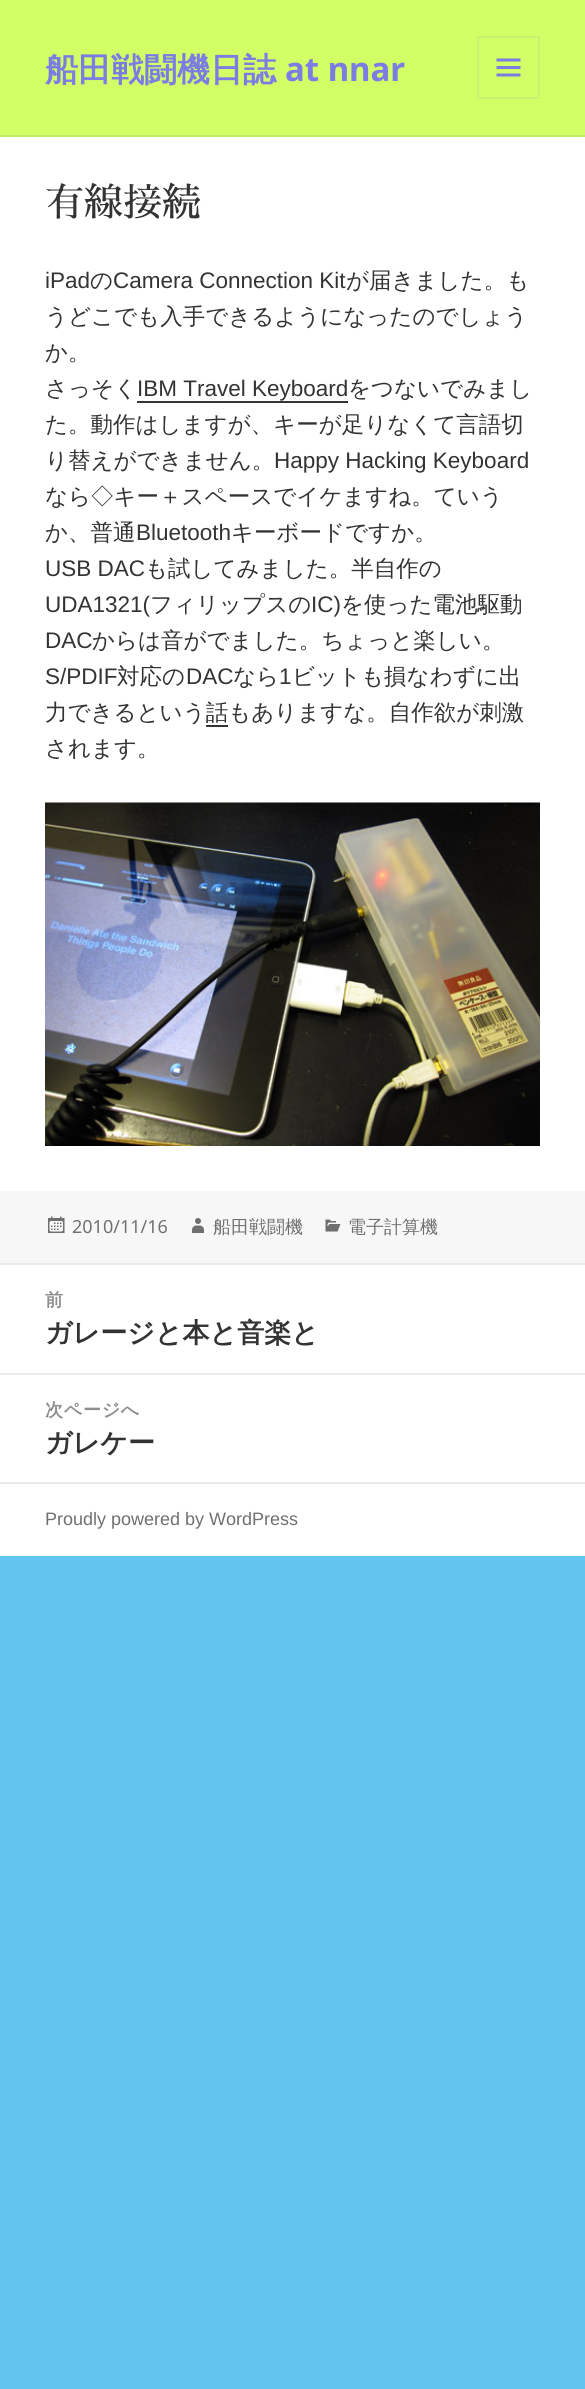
#include <cairo/cairo.h>
#include <math.h>
#include <stddef.h>


static void draw_spaced(cairo_t *cr, double x, double y, const char *s, double letter, double word) {
  cairo_move_to(cr, x, y);
  while (*s) {
    char ch[5] = {0};
    int n = 0;
    do ch[n++] = *s++; while ((*s & 0xC0) == 0x80);
    cairo_show_text(cr, ch);
    cairo_rel_move_to(cr, letter + word * (*ch == ' '), 0);
  }
}

static void draw_image(cairo_t *cr, const char *path, double x, double y, double w, double h) {
  cairo_surface_t *image = cairo_image_surface_create_from_png(path);
  cairo_save(cr);
  cairo_set_source_surface(cr, image, x, y);
  cairo_rectangle(cr, x, y, w, h);
  cairo_fill(cr);
  cairo_restore(cr);
  cairo_surface_destroy(image);
}

static void draw(cairo_t *cr) {
  cairo_set_source_rgb(cr, 98 / 255.0, 197 / 255.0, 239 / 255.0);
  cairo_paint(cr);
  cairo_set_source_rgb(cr, 211 / 255.0, 1, 102 / 255.0);
  cairo_rectangle(cr, 0, 0, 585, 135);
  cairo_fill(cr);
  cairo_set_source_rgb(cr, 195 / 255.0, 235 / 255.0, 97 / 255.0);
  cairo_rectangle(cr, 0, 135, 585, 2);
  cairo_fill(cr);
  cairo_rectangle(cr, 478, 37, 61, 61);
  cairo_set_source_rgb(cr, 202 / 255.0, 242 / 255.0, 114 / 255.0);
  cairo_stroke(cr);
  draw_image(cr, "images/1.png", 496, 58, 25, 19);
  cairo_set_source_rgb(cr, 1, 1, 1);
  cairo_rectangle(cr, 0, 137, 585, 1054);
  cairo_fill(cr);
  cairo_set_source_rgb(cr, 51 / 255.0, 51 / 255.0, 51 / 255.0);
  cairo_rectangle(cr, 137, 401, 211, 2);
  cairo_fill(cr);
  cairo_rectangle(cr, 206, 725, 22, 2);
  cairo_fill(cr);
  draw_image(cr, "images/2.png", 45, 802, 495, 344);
  cairo_set_source_rgb(cr, 247 / 255.0, 247 / 255.0, 247 / 255.0);
  cairo_rectangle(cr, 0, 1191, 585, 72);
  cairo_fill(cr);
  draw_image(cr, "images/3.png", 48, 1216, 17, 17);
  draw_image(cr, "images/4.png", 192, 1218, 12, 15);
  draw_image(cr, "images/5.png", 325, 1219, 16, 13);
  cairo_set_source_rgb(cr, 1, 1, 1);
  cairo_rectangle(cr, 0, 1265, 585, 217);
  cairo_fill(cr);
  cairo_set_source_rgb(cr, 235 / 255.0, 235 / 255.0, 235 / 255.0);
  cairo_rectangle(cr, 0, 1263, 585, 2);
  cairo_fill(cr);
  cairo_rectangle(cr, 0, 1373, 585, 2);
  cairo_fill(cr);
  cairo_set_source_rgb(cr, 1, 1, 1);
  cairo_rectangle(cr, 0, 1484, 585, 72);
  cairo_fill(cr);
  cairo_set_source_rgb(cr, 235 / 255.0, 235 / 255.0, 235 / 255.0);
  cairo_rectangle(cr, 0, 1482, 585, 2);
  cairo_fill(cr);
  cairo_select_font_face(cr, "WenQuanYi Zen Hei", CAIRO_FONT_SLANT_NORMAL, CAIRO_FONT_WEIGHT_BOLD);
  cairo_set_font_size(cr, 33);
  cairo_set_source_rgb(cr, 124 / 255.0, 124 / 255.0, 226 / 255.0);
  cairo_move_to(cr, 45, 81);
  cairo_show_text(cr, "船田戦闘機日誌");
  cairo_select_font_face(cr, "Noto Sans", CAIRO_FONT_SLANT_NORMAL, CAIRO_FONT_WEIGHT_BOLD);
  cairo_move_to(cr, 285, 81);
  cairo_show_text(cr, "at nnar");
  cairo_select_font_face(cr, "Sawarabi Mincho", CAIRO_FONT_SLANT_NORMAL, CAIRO_FONT_WEIGHT_NORMAL);
  cairo_set_font_size(cr, 39);
  cairo_set_source_rgb(cr, 51 / 255.0, 51 / 255.0, 51 / 255.0);
  cairo_move_to(cr, 45, 216);
  cairo_show_text(cr, "有線接続");
  cairo_select_font_face(cr, "Liberation Sans", CAIRO_FONT_SLANT_NORMAL, CAIRO_FONT_WEIGHT_NORMAL);
  cairo_set_font_size(cr, 22.5);
  cairo_move_to(cr, 45, 288);
  cairo_show_text(cr, "iPad");
  cairo_select_font_face(cr, "WenQuanYi Zen Hei Medium", CAIRO_FONT_SLANT_NORMAL, CAIRO_FONT_WEIGHT_NORMAL);
  cairo_move_to(cr, 90, 288);
  cairo_show_text(cr, "の");
  cairo_select_font_face(cr, "Liberation Sans", CAIRO_FONT_SLANT_NORMAL, CAIRO_FONT_WEIGHT_NORMAL);
  cairo_move_to(cr, 113, 288);
  cairo_show_text(cr, "Camera Connection Kit");
  cairo_select_font_face(cr, "WenQuanYi Zen Hei Medium", CAIRO_FONT_SLANT_NORMAL, CAIRO_FONT_WEIGHT_NORMAL);
  cairo_move_to(cr, 346, 288);
  cairo_show_text(cr, "が届きました。も");
  cairo_move_to(cr, 45, 324);
  cairo_show_text(cr, "うどこでも入手できるようになったのでしょう");
  cairo_move_to(cr, 45, 360);
  cairo_show_text(cr, "か。");
  cairo_move_to(cr, 45, 396);
  cairo_show_text(cr, "さっそく");
  cairo_select_font_face(cr, "Liberation Sans", CAIRO_FONT_SLANT_NORMAL, CAIRO_FONT_WEIGHT_NORMAL);
  cairo_move_to(cr, 137, 396);
  cairo_show_text(cr, "IBM Travel Keyboard");
  cairo_select_font_face(cr, "WenQuanYi Zen Hei Medium", CAIRO_FONT_SLANT_NORMAL, CAIRO_FONT_WEIGHT_NORMAL);
  cairo_move_to(cr, 348, 396);
  cairo_show_text(cr, "をつないでみまし");
  cairo_move_to(cr, 45, 432);
  cairo_show_text(cr, "た。動作はしますが、キーが足りなくて言語切");
  cairo_move_to(cr, 45, 468);
  cairo_show_text(cr, "り替えができません。");
  cairo_select_font_face(cr, "Liberation Sans", CAIRO_FONT_SLANT_NORMAL, CAIRO_FONT_WEIGHT_NORMAL);
  cairo_move_to(cr, 274, 468);
  cairo_show_text(cr, "Happy Hacking Keyboard");
  cairo_select_font_face(cr, "WenQuanYi Zen Hei Medium", CAIRO_FONT_SLANT_NORMAL, CAIRO_FONT_WEIGHT_NORMAL);
  cairo_move_to(cr, 45, 504);
  cairo_show_text(cr, "なら◇キー＋スペースでイケますね。ていう");
  cairo_move_to(cr, 45, 540);
  cairo_show_text(cr, "か、普通");
  cairo_select_font_face(cr, "Liberation Sans", CAIRO_FONT_SLANT_NORMAL, CAIRO_FONT_WEIGHT_NORMAL);
  cairo_move_to(cr, 136, 540);
  cairo_show_text(cr, "Bluetooth");
  cairo_select_font_face(cr, "WenQuanYi Zen Hei Medium", CAIRO_FONT_SLANT_NORMAL, CAIRO_FONT_WEIGHT_NORMAL);
  cairo_move_to(cr, 231, 540);
  cairo_show_text(cr, "キーボードですか。");
  cairo_select_font_face(cr, "Liberation Sans", CAIRO_FONT_SLANT_NORMAL, CAIRO_FONT_WEIGHT_NORMAL);
  cairo_move_to(cr, 45, 576);
  cairo_show_text(cr, "USB DAC");
  cairo_select_font_face(cr, "WenQuanYi Zen Hei Medium", CAIRO_FONT_SLANT_NORMAL, CAIRO_FONT_WEIGHT_NORMAL);
  cairo_move_to(cr, 145, 576);
  cairo_show_text(cr, "も試してみました。半自作の");
  cairo_select_font_face(cr, "Liberation Sans", CAIRO_FONT_SLANT_NORMAL, CAIRO_FONT_WEIGHT_NORMAL);
  cairo_move_to(cr, 45, 612);
  cairo_show_text(cr, "UDA1321(");
  cairo_select_font_face(cr, "WenQuanYi Zen Hei Medium", CAIRO_FONT_SLANT_NORMAL, CAIRO_FONT_WEIGHT_NORMAL);
  cairo_move_to(cr, 150, 612);
  cairo_show_text(cr, "フィリップスの");
  cairo_select_font_face(cr, "Liberation Sans", CAIRO_FONT_SLANT_NORMAL, CAIRO_FONT_WEIGHT_NORMAL);
  cairo_move_to(cr, 311, 612);
  cairo_show_text(cr, "IC)");
  cairo_select_font_face(cr, "WenQuanYi Zen Hei Medium", CAIRO_FONT_SLANT_NORMAL, CAIRO_FONT_WEIGHT_NORMAL);
  cairo_move_to(cr, 341, 612);
  cairo_show_text(cr, "を使った電池駆動");
  cairo_select_font_face(cr, "Liberation Sans", CAIRO_FONT_SLANT_NORMAL, CAIRO_FONT_WEIGHT_NORMAL);
  cairo_move_to(cr, 45, 648);
  cairo_show_text(cr, "DAC");
  cairo_select_font_face(cr, "WenQuanYi Zen Hei Medium", CAIRO_FONT_SLANT_NORMAL, CAIRO_FONT_WEIGHT_NORMAL);
  cairo_move_to(cr, 92, 648);
  cairo_show_text(cr, "からは音がでました。ちょっと楽しい。");
  cairo_select_font_face(cr, "Liberation Sans", CAIRO_FONT_SLANT_NORMAL, CAIRO_FONT_WEIGHT_NORMAL);
  cairo_move_to(cr, 45, 684);
  cairo_show_text(cr, "S/PDIF");
  cairo_select_font_face(cr, "WenQuanYi Zen Hei Medium", CAIRO_FONT_SLANT_NORMAL, CAIRO_FONT_WEIGHT_NORMAL);
  cairo_move_to(cr, 117, 684);
  cairo_show_text(cr, "対応の");
  cairo_select_font_face(cr, "Liberation Sans", CAIRO_FONT_SLANT_NORMAL, CAIRO_FONT_WEIGHT_NORMAL);
  cairo_move_to(cr, 186, 684);
  cairo_show_text(cr, "DAC");
  cairo_select_font_face(cr, "WenQuanYi Zen Hei Medium", CAIRO_FONT_SLANT_NORMAL, CAIRO_FONT_WEIGHT_NORMAL);
  cairo_move_to(cr, 233, 684);
  cairo_show_text(cr, "なら");
  cairo_select_font_face(cr, "Liberation Sans", CAIRO_FONT_SLANT_NORMAL, CAIRO_FONT_WEIGHT_NORMAL);
  cairo_move_to(cr, 279, 684);
  cairo_show_text(cr, "1");
  cairo_select_font_face(cr, "WenQuanYi Zen Hei Medium", CAIRO_FONT_SLANT_NORMAL, CAIRO_FONT_WEIGHT_NORMAL);
  cairo_move_to(cr, 292, 684);
  cairo_show_text(cr, "ビットも損なわずに出");
  cairo_move_to(cr, 45, 720);
  cairo_show_text(cr, "力できるという話もありますな。自作欲が刺激");
  cairo_move_to(cr, 45, 756);
  cairo_show_text(cr, "されます。");
  cairo_select_font_face(cr, "Noto Sans", CAIRO_FONT_SLANT_NORMAL, CAIRO_FONT_WEIGHT_NORMAL);
  cairo_set_font_size(cr, 18);
  cairo_set_source_rgb(cr, 112 / 255.0, 112 / 255.0, 112 / 255.0);
  cairo_move_to(cr, 72, 1233);
  cairo_show_text(cr, "2010/11/16");
  cairo_select_font_face(cr, "WenQuanYi Zen Hei Medium", CAIRO_FONT_SLANT_NORMAL, CAIRO_FONT_WEIGHT_NORMAL);
  cairo_move_to(cr, 213, 1233);
  cairo_show_text(cr, "船田戦闘機");
  cairo_move_to(cr, 348, 1233);
  cairo_show_text(cr, "電子計算機");
  cairo_select_font_face(cr, "WenQuanYi Zen Hei", CAIRO_FONT_SLANT_NORMAL, CAIRO_FONT_WEIGHT_BOLD);
  cairo_set_source_rgb(cr, 141 / 255.0, 141 / 255.0, 141 / 255.0);
  draw_spaced(cr, 45, 1306, "前", 0.75, 0);
  cairo_set_font_size(cr, 27);
  cairo_set_source_rgb(cr, 51 / 255.0, 51 / 255.0, 51 / 255.0);
  cairo_move_to(cr, 45, 1342);
  cairo_show_text(cr, "ガレージと本と音楽と");
  cairo_set_font_size(cr, 18);
  cairo_set_source_rgb(cr, 141 / 255.0, 141 / 255.0, 141 / 255.0);
  draw_spaced(cr, 45, 1416, "次ページへ", 0.75, 0);
  cairo_set_font_size(cr, 27);
  cairo_set_source_rgb(cr, 51 / 255.0, 51 / 255.0, 51 / 255.0);
  cairo_move_to(cr, 45, 1452);
  cairo_show_text(cr, "ガレケー");
  cairo_select_font_face(cr, "Liberation Sans", CAIRO_FONT_SLANT_NORMAL, CAIRO_FONT_WEIGHT_NORMAL);
  cairo_set_font_size(cr, 18);
  cairo_set_source_rgb(cr, 112 / 255.0, 112 / 255.0, 112 / 255.0);
  cairo_move_to(cr, 45, 1525);
  cairo_show_text(cr, "Proudly powered by WordPress");
}

int main(void) {
  cairo_surface_t *surface = cairo_image_surface_create(CAIRO_FORMAT_RGB24, 585, 2389);
  cairo_t *cr = cairo_create(surface);
  cairo_font_options_t *options = cairo_font_options_create();
  cairo_font_options_set_hint_metrics(options, CAIRO_HINT_METRICS_OFF);
  cairo_font_options_set_hint_style(options, CAIRO_HINT_STYLE_NONE);
  cairo_set_font_options(cr, options);
  cairo_set_miter_limit(cr, 4);
  draw(cr);
  cairo_surface_write_to_png(surface, "out.png");
  cairo_font_options_destroy(options);
  cairo_destroy(cr);
  cairo_surface_destroy(surface);
  return 0;
}
